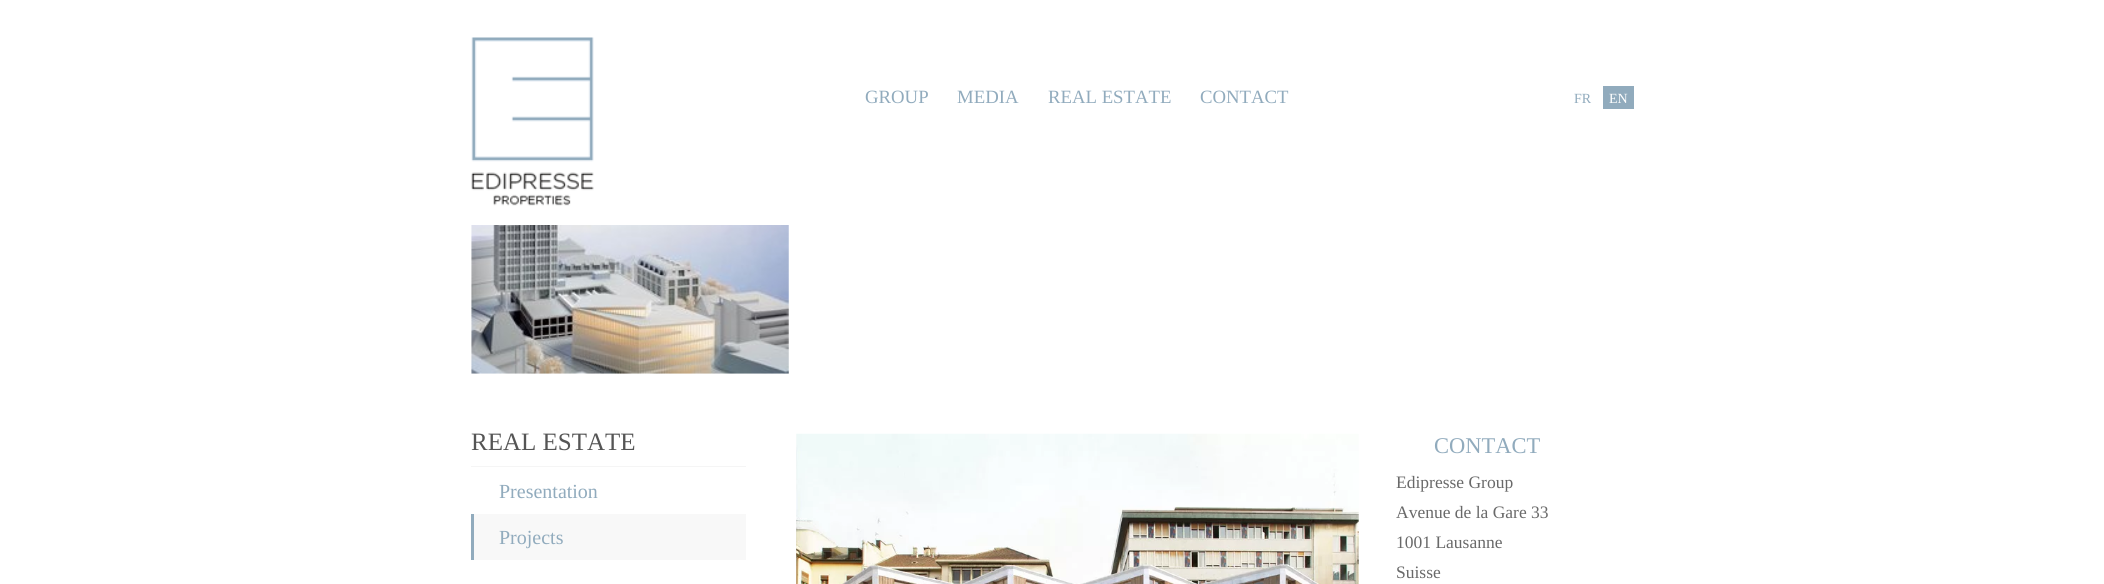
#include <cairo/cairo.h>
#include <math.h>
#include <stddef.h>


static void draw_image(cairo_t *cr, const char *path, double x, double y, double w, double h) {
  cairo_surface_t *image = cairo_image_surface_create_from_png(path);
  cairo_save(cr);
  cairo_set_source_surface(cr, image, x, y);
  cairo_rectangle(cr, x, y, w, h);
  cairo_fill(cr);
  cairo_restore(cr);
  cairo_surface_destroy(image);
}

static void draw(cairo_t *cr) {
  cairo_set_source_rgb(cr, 1, 1, 1);
  cairo_paint(cr);
  draw_image(cr, "images/1.png", 471, 37, 123, 169);
  cairo_set_source_rgb(cr, 145 / 255.0, 171 / 255.0, 189 / 255.0);
  cairo_rectangle(cr, 1603, 86, 31, 23);
  cairo_fill(cr);
  draw_image(cr, "images/2.png", 471, 225, 318, 149);
  cairo_set_source_rgb(cr, 245 / 255.0, 245 / 255.0, 245 / 255.0);
  cairo_rectangle(cr, 471, 466, 275, 1);
  cairo_fill(cr);
  cairo_set_source_rgb(cr, 248 / 255.0, 248 / 255.0, 248 / 255.0);
  cairo_rectangle(cr, 474, 514, 272, 46);
  cairo_fill(cr);
  cairo_set_source_rgb(cr, 145 / 255.0, 171 / 255.0, 189 / 255.0);
  cairo_rectangle(cr, 471, 514, 3, 46);
  cairo_fill(cr);
  draw_image(cr, "images/3.png", 796, 433, 563, 151);
  cairo_select_font_face(cr, "Liberation Serif", CAIRO_FONT_SLANT_NORMAL, CAIRO_FONT_WEIGHT_NORMAL);
  cairo_set_font_size(cr, 18.75);
  cairo_move_to(cr, 865, 103);
  cairo_show_text(cr, "GROUP");
  cairo_move_to(cr, 957, 103);
  cairo_show_text(cr, "MEDIA");
  cairo_move_to(cr, 1048, 103);
  cairo_show_text(cr, "REAL ESTATE");
  cairo_move_to(cr, 1200, 103);
  cairo_show_text(cr, "CONTACT");
  cairo_set_font_size(cr, 14);
  cairo_move_to(cr, 1574, 103);
  cairo_show_text(cr, "FR");
  cairo_set_source_rgb(cr, 1, 1, 1);
  cairo_move_to(cr, 1609, 103);
  cairo_show_text(cr, "EN");
  cairo_set_font_size(cr, 25);
  cairo_set_source_rgb(cr, 85 / 255.0, 85 / 255.0, 85 / 255.0);
  cairo_move_to(cr, 471, 450);
  cairo_show_text(cr, "REAL ESTATE");
  cairo_set_font_size(cr, 20);
  cairo_set_source_rgb(cr, 145 / 255.0, 171 / 255.0, 189 / 255.0);
  cairo_move_to(cr, 499, 498);
  cairo_show_text(cr, "Presentation");
  cairo_move_to(cr, 499, 544);
  cairo_show_text(cr, "Projects");
  cairo_set_font_size(cr, 22.5);
  cairo_move_to(cr, 1434, 453);
  cairo_show_text(cr, "CONTACT");
  cairo_set_font_size(cr, 17.5);
  cairo_set_source_rgb(cr, 105 / 255.0, 105 / 255.0, 105 / 255.0);
  cairo_move_to(cr, 1396, 488);
  cairo_show_text(cr, "Edipresse Group");
  cairo_move_to(cr, 1396, 518);
  cairo_show_text(cr, "Avenue de la Gare 33");
  cairo_move_to(cr, 1396, 548);
  cairo_show_text(cr, "1001 Lausanne");
  cairo_move_to(cr, 1396, 578);
  cairo_show_text(cr, "Suisse");
}

int main(void) {
  cairo_surface_t *surface = cairo_image_surface_create(CAIRO_FORMAT_RGB24, 2104, 584);
  cairo_t *cr = cairo_create(surface);
  cairo_font_options_t *options = cairo_font_options_create();
  cairo_font_options_set_hint_metrics(options, CAIRO_HINT_METRICS_OFF);
  cairo_font_options_set_hint_style(options, CAIRO_HINT_STYLE_NONE);
  cairo_set_font_options(cr, options);
  cairo_set_miter_limit(cr, 4);
  draw(cr);
  cairo_surface_write_to_png(surface, "out.png");
  cairo_font_options_destroy(options);
  cairo_destroy(cr);
  cairo_surface_destroy(surface);
  return 0;
}
